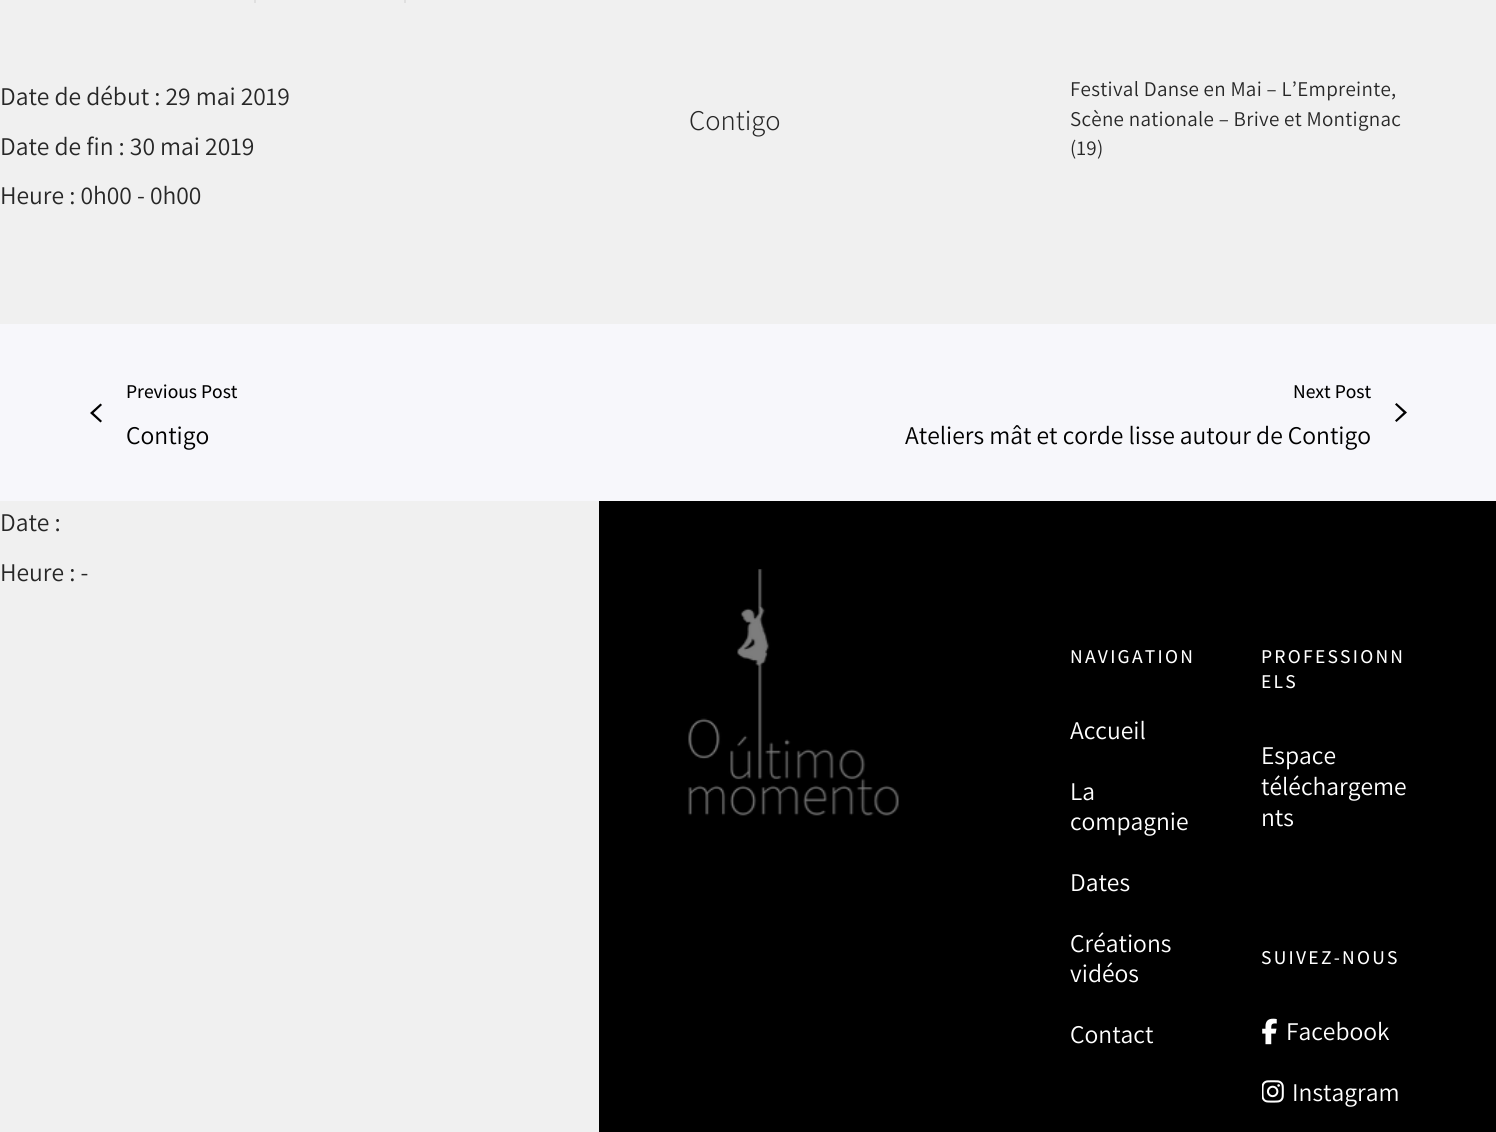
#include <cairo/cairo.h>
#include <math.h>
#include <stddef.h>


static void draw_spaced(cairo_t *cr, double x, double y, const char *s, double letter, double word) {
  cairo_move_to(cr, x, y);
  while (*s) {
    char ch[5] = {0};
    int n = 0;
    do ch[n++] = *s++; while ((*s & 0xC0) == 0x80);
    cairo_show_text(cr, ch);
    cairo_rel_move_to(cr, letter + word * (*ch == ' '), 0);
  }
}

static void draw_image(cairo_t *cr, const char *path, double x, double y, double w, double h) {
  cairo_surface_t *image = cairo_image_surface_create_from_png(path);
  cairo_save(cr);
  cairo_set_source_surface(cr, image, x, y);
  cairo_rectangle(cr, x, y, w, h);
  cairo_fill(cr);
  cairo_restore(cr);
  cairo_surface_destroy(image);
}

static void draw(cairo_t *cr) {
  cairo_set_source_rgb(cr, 240 / 255.0, 240 / 255.0, 240 / 255.0);
  cairo_paint(cr);
  cairo_set_source_rgb(cr, 224 / 255.0, 224 / 255.0, 224 / 255.0);
  cairo_rectangle(cr, 254, 0, 2, 3);
  cairo_fill(cr);
  cairo_rectangle(cr, 404, 0, 2, 3);
  cairo_fill(cr);
  cairo_set_source_rgb(cr, 247 / 255.0, 247 / 255.0, 251 / 255.0);
  cairo_rectangle(cr, 0, 324, 1496, 177);
  cairo_fill(cr);
  cairo_set_source_rgb(cr, 0, 0, 0);
  cairo_new_path(cr);
  cairo_move_to(cr, 100.5, 422.5);
  cairo_line_to(cr, 90, 413);
  cairo_line_to(cr, 100.5, 403.5);
  cairo_line_to(cr, 102, 405);
  cairo_line_to(cr, 93.5, 413);
  cairo_line_to(cr, 102, 421);
  cairo_close_path(cr);
  cairo_fill(cr);
  cairo_new_path(cr);
  cairo_move_to(cr, 1396.5, 403);
  cairo_line_to(cr, 1407, 412.5);
  cairo_line_to(cr, 1396.5, 422);
  cairo_line_to(cr, 1395, 420.5);
  cairo_line_to(cr, 1403.5, 412.5);
  cairo_line_to(cr, 1395, 404.5);
  cairo_close_path(cr);
  cairo_fill(cr);
  cairo_rectangle(cr, 599, 501, 897, 631);
  cairo_fill(cr);
  draw_image(cr, "images/1.png", 688, 569, 211, 247);
  draw_image(cr, "images/2.png", 1262, 1018, 15, 27);
  draw_image(cr, "images/3.png", 1262, 1080, 22, 23);
  cairo_select_font_face(cr, "Assistant", CAIRO_FONT_SLANT_NORMAL, CAIRO_FONT_WEIGHT_NORMAL);
  cairo_set_font_size(cr, 25.5);
  cairo_set_source_rgb(cr, 39 / 255.0, 39 / 255.0, 39 / 255.0);
  cairo_move_to(cr, 0, 105);
  cairo_show_text(cr, "Date de début : 29 mai 2019");
  cairo_move_to(cr, 0, 155);
  cairo_show_text(cr, "Date de fin : 30 mai 2019");
  cairo_move_to(cr, 0, 204);
  cairo_show_text(cr, "Heure : 0h00 - 0h00");
  cairo_select_font_face(cr, "Assistant Light", CAIRO_FONT_SLANT_NORMAL, CAIRO_FONT_WEIGHT_NORMAL);
  cairo_set_font_size(cr, 28.5);
  cairo_move_to(cr, 689, 130);
  cairo_show_text(cr, "Contigo");
  cairo_select_font_face(cr, "Assistant", CAIRO_FONT_SLANT_NORMAL, CAIRO_FONT_WEIGHT_NORMAL);
  cairo_set_font_size(cr, 21);
  draw_spaced(cr, 1070, 96, "Festival Danse en Mai – L’Empreinte,", 0.3, 0);
  draw_spaced(cr, 1070, 126, "Scène nationale – Brive et Montignac", 0.3, 0);
  draw_spaced(cr, 1070, 155, "(19)", 0.3, 0);
  cairo_select_font_face(cr, "Assistant Medium", CAIRO_FONT_SLANT_NORMAL, CAIRO_FONT_WEIGHT_NORMAL);
  cairo_set_font_size(cr, 19.5);
  cairo_set_source_rgb(cr, 0, 0, 0);
  cairo_move_to(cr, 126, 398);
  cairo_show_text(cr, "Previous Post");
  cairo_select_font_face(cr, "Assistant", CAIRO_FONT_SLANT_NORMAL, CAIRO_FONT_WEIGHT_NORMAL);
  cairo_set_font_size(cr, 25.5);
  cairo_move_to(cr, 126, 444);
  cairo_show_text(cr, "Contigo");
  cairo_select_font_face(cr, "Assistant Medium", CAIRO_FONT_SLANT_NORMAL, CAIRO_FONT_WEIGHT_NORMAL);
  cairo_set_font_size(cr, 19.5);
  cairo_move_to(cr, 1293, 398);
  cairo_show_text(cr, "Next Post");
  cairo_select_font_face(cr, "Assistant", CAIRO_FONT_SLANT_NORMAL, CAIRO_FONT_WEIGHT_NORMAL);
  cairo_set_font_size(cr, 25.5);
  cairo_move_to(cr, 905, 444);
  cairo_show_text(cr, "Ateliers mât et corde lisse autour de Contigo");
  cairo_set_source_rgb(cr, 39 / 255.0, 39 / 255.0, 39 / 255.0);
  cairo_move_to(cr, 0, 531);
  cairo_show_text(cr, "Date :");
  cairo_move_to(cr, 0, 581);
  cairo_show_text(cr, "Heure : -");
  cairo_select_font_face(cr, "Assistant Medium", CAIRO_FONT_SLANT_NORMAL, CAIRO_FONT_WEIGHT_NORMAL);
  cairo_set_font_size(cr, 19.5);
  cairo_set_source_rgb(cr, 1, 1, 1);
  draw_spaced(cr, 1070, 663, "NAVIGATION", 2.25, 0);
  cairo_select_font_face(cr, "Assistant", CAIRO_FONT_SLANT_NORMAL, CAIRO_FONT_WEIGHT_NORMAL);
  cairo_set_font_size(cr, 25.5);
  cairo_move_to(cr, 1070, 739);
  cairo_show_text(cr, "Accueil");
  cairo_move_to(cr, 1070, 800);
  cairo_show_text(cr, "La");
  cairo_move_to(cr, 1070, 830);
  cairo_show_text(cr, "compagnie");
  cairo_move_to(cr, 1070, 891);
  cairo_show_text(cr, "Dates");
  cairo_move_to(cr, 1070, 952);
  cairo_show_text(cr, "Créations");
  cairo_move_to(cr, 1070, 982);
  cairo_show_text(cr, "vidéos");
  cairo_move_to(cr, 1070, 1043);
  cairo_show_text(cr, "Contact");
  cairo_select_font_face(cr, "Assistant Medium", CAIRO_FONT_SLANT_NORMAL, CAIRO_FONT_WEIGHT_NORMAL);
  cairo_set_font_size(cr, 19.5);
  draw_spaced(cr, 1261, 663, "PROFESSIONN", 2.25, 0);
  draw_spaced(cr, 1261, 688, "ELS", 2.25, 0);
  cairo_select_font_face(cr, "Assistant", CAIRO_FONT_SLANT_NORMAL, CAIRO_FONT_WEIGHT_NORMAL);
  cairo_set_font_size(cr, 25.5);
  cairo_move_to(cr, 1261, 764);
  cairo_show_text(cr, "Espace");
  cairo_move_to(cr, 1261, 795);
  cairo_show_text(cr, "téléchargeme");
  cairo_move_to(cr, 1261, 826);
  cairo_show_text(cr, "nts");
  cairo_select_font_face(cr, "Assistant Medium", CAIRO_FONT_SLANT_NORMAL, CAIRO_FONT_WEIGHT_NORMAL);
  cairo_set_font_size(cr, 19.5);
  draw_spaced(cr, 1261, 964, "SUIVEZ-NOUS", 2.25, 0);
  cairo_select_font_face(cr, "Assistant", CAIRO_FONT_SLANT_NORMAL, CAIRO_FONT_WEIGHT_NORMAL);
  cairo_set_font_size(cr, 25.5);
  cairo_move_to(cr, 1286, 1040);
  cairo_show_text(cr, "Facebook");
  cairo_move_to(cr, 1292, 1101);
  cairo_show_text(cr, "Instagram");
}

int main(void) {
  cairo_surface_t *surface = cairo_image_surface_create(CAIRO_FORMAT_RGB24, 1496, 1132);
  cairo_t *cr = cairo_create(surface);
  cairo_font_options_t *options = cairo_font_options_create();
  cairo_font_options_set_hint_metrics(options, CAIRO_HINT_METRICS_OFF);
  cairo_font_options_set_hint_style(options, CAIRO_HINT_STYLE_NONE);
  cairo_set_font_options(cr, options);
  cairo_set_miter_limit(cr, 4);
  draw(cr);
  cairo_surface_write_to_png(surface, "out.png");
  cairo_font_options_destroy(options);
  cairo_destroy(cr);
  cairo_surface_destroy(surface);
  return 0;
}
